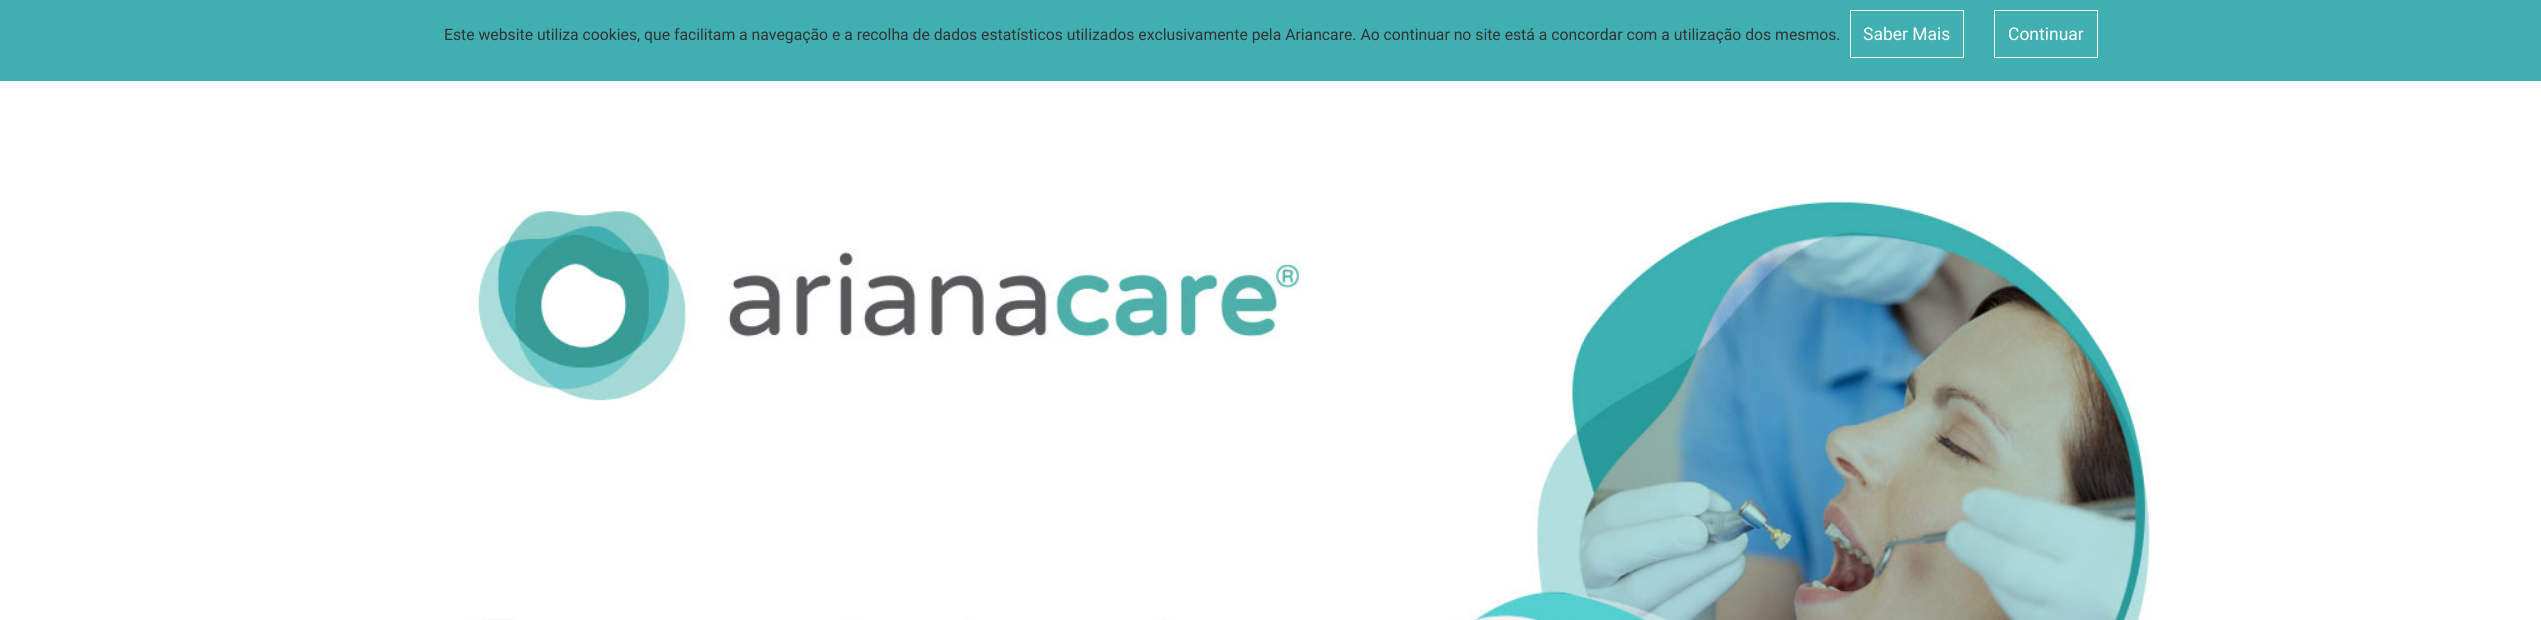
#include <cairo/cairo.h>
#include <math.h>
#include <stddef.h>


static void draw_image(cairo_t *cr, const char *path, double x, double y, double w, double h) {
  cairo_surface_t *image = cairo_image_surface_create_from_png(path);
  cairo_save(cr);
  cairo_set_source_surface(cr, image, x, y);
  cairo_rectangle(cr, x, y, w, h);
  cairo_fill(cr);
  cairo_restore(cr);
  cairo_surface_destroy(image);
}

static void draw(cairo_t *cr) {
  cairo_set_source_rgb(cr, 1, 1, 1);
  cairo_paint(cr);
  cairo_set_source_rgb(cr, 64 / 255.0, 175 / 255.0, 177 / 255.0);
  cairo_rectangle(cr, 0, 0, 2541, 81);
  cairo_fill(cr);
  cairo_rectangle(cr, 1850.5, 10.5, 113, 47);
  cairo_set_source_rgb(cr, 1, 1, 1);
  cairo_set_line_width(cr, 1);
  cairo_stroke(cr);
  cairo_rectangle(cr, 1994.5, 10.5, 103, 47);
  cairo_stroke(cr);
  draw_image(cr, "images/1.png", 470, 200, 1680, 420);
  cairo_select_font_face(cr, "Roboto", CAIRO_FONT_SLANT_NORMAL, CAIRO_FONT_WEIGHT_NORMAL);
  cairo_set_font_size(cr, 15.75);
  cairo_set_source_rgb(cr, 51 / 255.0, 51 / 255.0, 51 / 255.0);
  cairo_move_to(cr, 444, 40);
  cairo_show_text(cr, "Este website utiliza cookies, que facilitam a navegação e a recolha de dados estatísticos utilizados exclusivamente pela Ariancare. Ao continuar no site está a concordar com a utilização dos mesmos.");
  cairo_set_font_size(cr, 17.5);
  cairo_set_source_rgb(cr, 1, 1, 1);
  cairo_move_to(cr, 1863, 40);
  cairo_show_text(cr, "Saber Mais");
  cairo_move_to(cr, 2008, 40);
  cairo_show_text(cr, "Continuar");
}

int main(void) {
  cairo_surface_t *surface = cairo_image_surface_create(CAIRO_FORMAT_RGB24, 2541, 620);
  cairo_t *cr = cairo_create(surface);
  cairo_font_options_t *options = cairo_font_options_create();
  cairo_font_options_set_hint_metrics(options, CAIRO_HINT_METRICS_OFF);
  cairo_font_options_set_hint_style(options, CAIRO_HINT_STYLE_NONE);
  cairo_set_font_options(cr, options);
  cairo_set_miter_limit(cr, 4);
  draw(cr);
  cairo_surface_write_to_png(surface, "out.png");
  cairo_font_options_destroy(options);
  cairo_destroy(cr);
  cairo_surface_destroy(surface);
  return 0;
}
